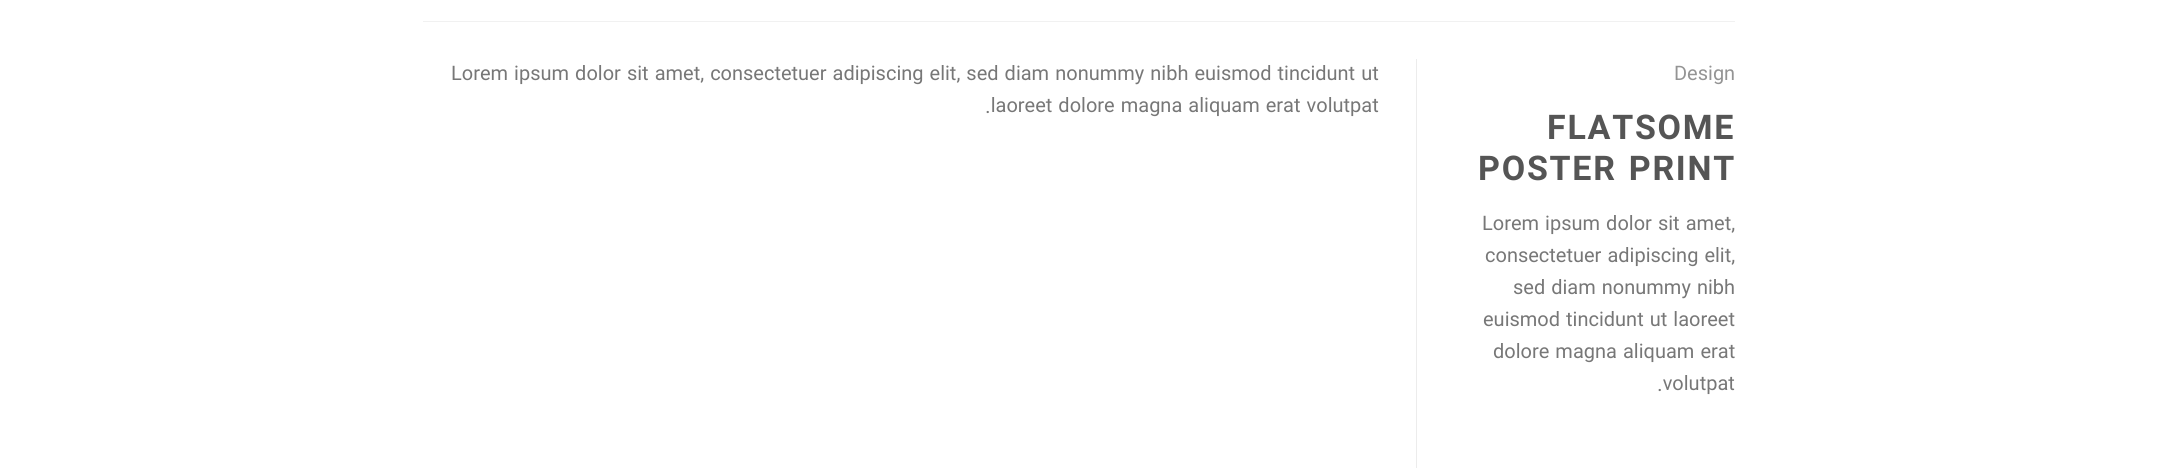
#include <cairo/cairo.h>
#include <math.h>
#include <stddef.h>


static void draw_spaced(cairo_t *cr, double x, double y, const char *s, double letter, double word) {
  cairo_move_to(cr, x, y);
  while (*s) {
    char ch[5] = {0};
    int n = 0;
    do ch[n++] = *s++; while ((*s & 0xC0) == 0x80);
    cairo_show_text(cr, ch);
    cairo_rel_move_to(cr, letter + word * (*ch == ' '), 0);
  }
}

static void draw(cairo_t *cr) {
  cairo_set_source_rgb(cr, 1, 1, 1);
  cairo_paint(cr);
  cairo_set_source_rgb(cr, 241 / 255.0, 241 / 255.0, 241 / 255.0);
  cairo_rectangle(cr, 423, 21, 1312, 1);
  cairo_fill(cr);
  cairo_set_source_rgb(cr, 236 / 255.0, 236 / 255.0, 236 / 255.0);
  cairo_rectangle(cr, 1416, 59, 1, 409);
  cairo_fill(cr);
  cairo_select_font_face(cr, "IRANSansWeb", CAIRO_FONT_SLANT_NORMAL, CAIRO_FONT_WEIGHT_NORMAL);
  cairo_set_font_size(cr, 20);
  cairo_set_source_rgb(cr, 119 / 255.0, 119 / 255.0, 119 / 255.0);
  cairo_move_to(cr, 451, 80);
  cairo_show_text(cr, "Lorem ipsum dolor sit amet, consectetuer adipiscing elit, sed diam nonummy nibh euismod tincidunt ut");
  cairo_move_to(cr, 985, 112);
  cairo_show_text(cr, ".laoreet dolore magna aliquam erat volutpat");
  cairo_set_source_rgb(cr, 148 / 255.0, 148 / 255.0, 148 / 255.0);
  cairo_move_to(cr, 1674, 80);
  cairo_show_text(cr, "Design");
  cairo_select_font_face(cr, "IRANSansWeb", CAIRO_FONT_SLANT_NORMAL, CAIRO_FONT_WEIGHT_BOLD);
  cairo_set_font_size(cr, 34);
  cairo_set_source_rgb(cr, 85 / 255.0, 85 / 255.0, 85 / 255.0);
  draw_spaced(cr, 1547, 139, "FLATSOME", 1.75, 0);
  draw_spaced(cr, 1478, 180, "POSTER PRINT", 1.75, 0);
  cairo_select_font_face(cr, "IRANSansWeb", CAIRO_FONT_SLANT_NORMAL, CAIRO_FONT_WEIGHT_NORMAL);
  cairo_set_font_size(cr, 20);
  cairo_set_source_rgb(cr, 119 / 255.0, 119 / 255.0, 119 / 255.0);
  cairo_move_to(cr, 1482, 230);
  cairo_show_text(cr, "Lorem ipsum dolor sit amet,");
  cairo_move_to(cr, 1485, 262);
  cairo_show_text(cr, "consectetuer adipiscing elit,");
  cairo_move_to(cr, 1513, 294);
  cairo_show_text(cr, "sed diam nonummy nibh");
  cairo_move_to(cr, 1483, 326);
  cairo_show_text(cr, "euismod tincidunt ut laoreet");
  cairo_move_to(cr, 1493, 358);
  cairo_show_text(cr, "dolore magna aliquam erat");
  cairo_move_to(cr, 1657, 390);
  cairo_show_text(cr, ".volutpat");
}

int main(void) {
  cairo_surface_t *surface = cairo_image_surface_create(CAIRO_FORMAT_RGB24, 2157, 468);
  cairo_t *cr = cairo_create(surface);
  cairo_font_options_t *options = cairo_font_options_create();
  cairo_font_options_set_hint_metrics(options, CAIRO_HINT_METRICS_OFF);
  cairo_font_options_set_hint_style(options, CAIRO_HINT_STYLE_NONE);
  cairo_set_font_options(cr, options);
  cairo_set_miter_limit(cr, 4);
  draw(cr);
  cairo_surface_write_to_png(surface, "out.png");
  cairo_font_options_destroy(options);
  cairo_destroy(cr);
  cairo_surface_destroy(surface);
  return 0;
}
